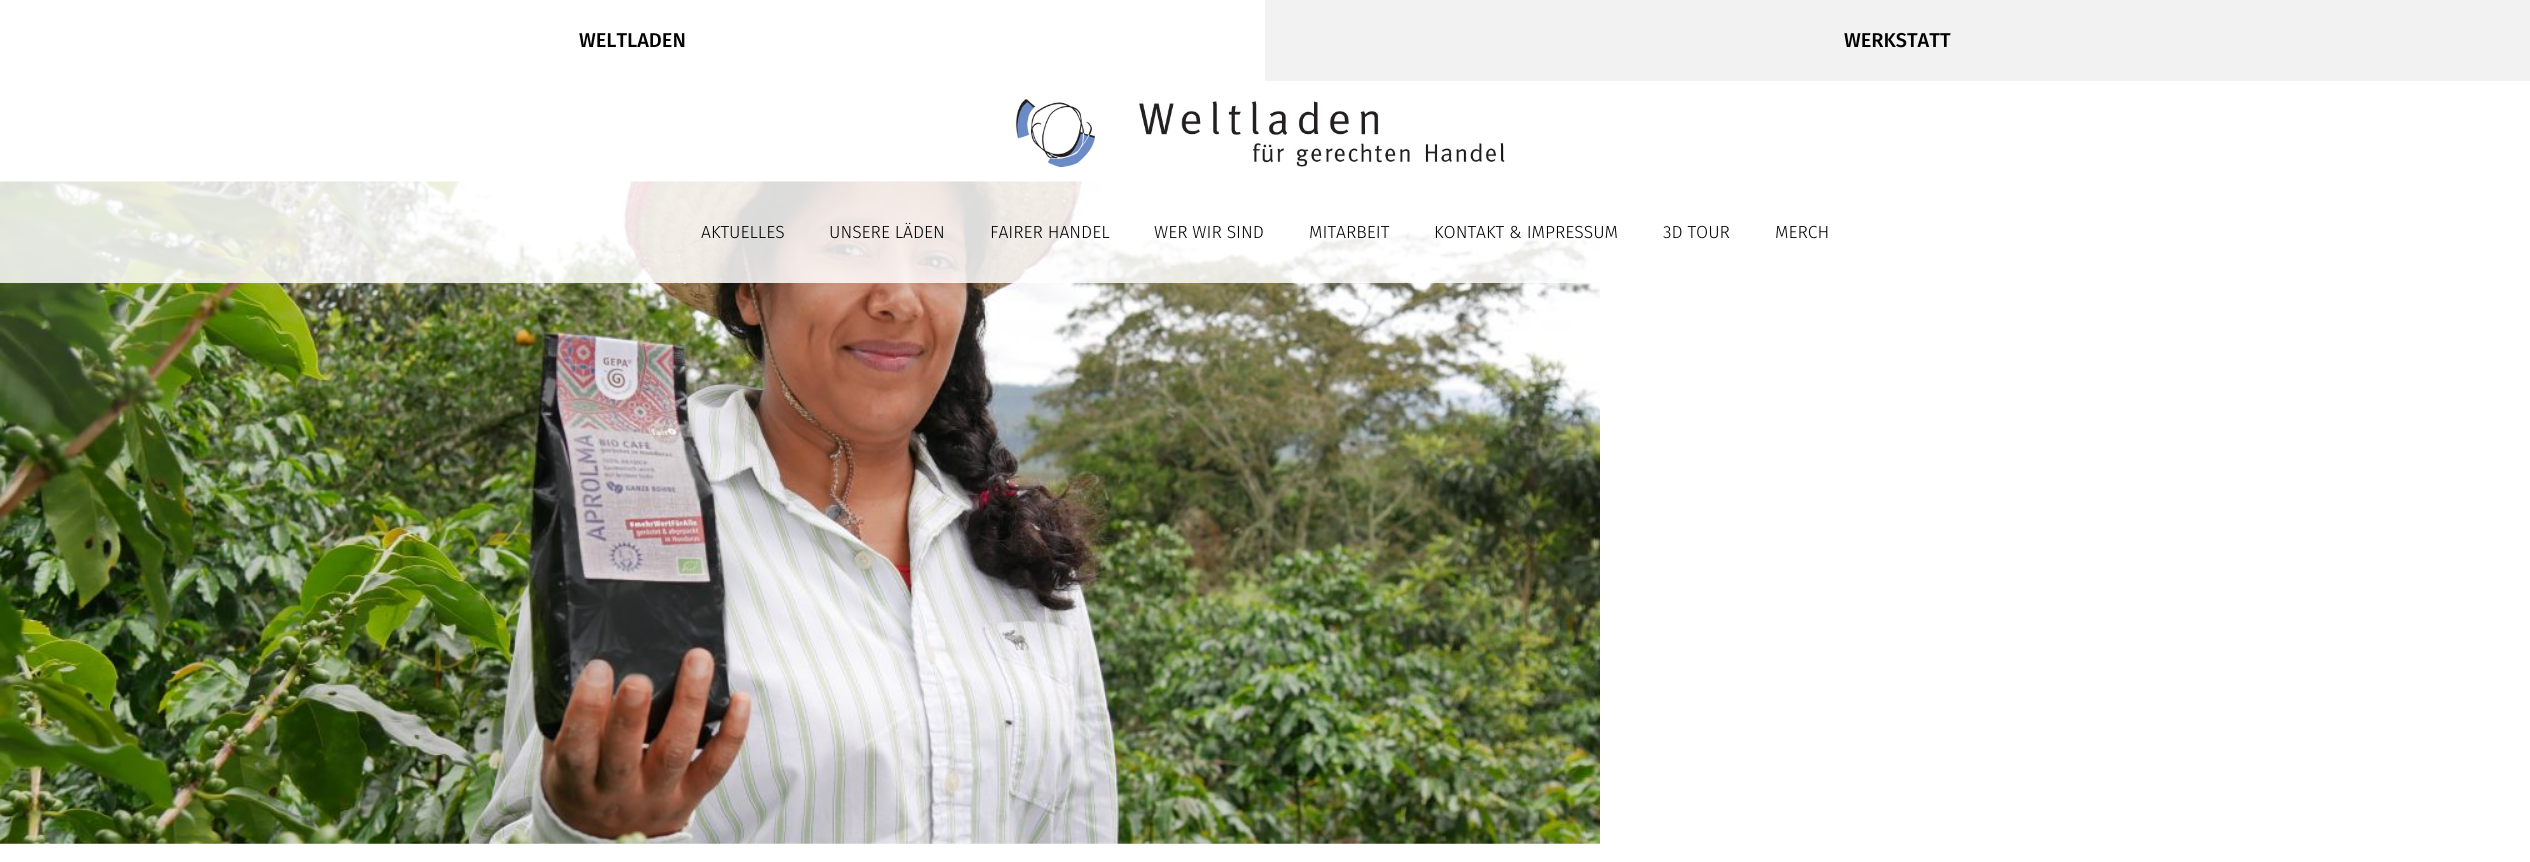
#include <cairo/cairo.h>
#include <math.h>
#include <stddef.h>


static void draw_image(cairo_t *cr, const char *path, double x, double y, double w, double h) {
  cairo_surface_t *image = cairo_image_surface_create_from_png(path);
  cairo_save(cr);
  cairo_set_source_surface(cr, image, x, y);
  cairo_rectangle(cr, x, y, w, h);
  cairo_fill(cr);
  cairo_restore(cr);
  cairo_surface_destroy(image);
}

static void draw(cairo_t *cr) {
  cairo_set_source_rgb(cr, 1, 1, 1);
  cairo_paint(cr);
  cairo_set_source_rgb(cr, 242 / 255.0, 242 / 255.0, 242 / 255.0);
  cairo_rectangle(cr, 1265, 0, 1265, 81);
  cairo_fill(cr);
  draw_image(cr, "images/1.png", 1015, 99, 490, 69);
  draw_image(cr, "images/2.png", 0, 181, 1600, 663);
  cairo_set_source_rgba(cr, 1, 1, 1, 0.85);
  cairo_rectangle(cr, 0, 181, 1591, 102);
  cairo_fill(cr);
  cairo_select_font_face(cr, "Fira Sans Medium", CAIRO_FONT_SLANT_NORMAL, CAIRO_FONT_WEIGHT_NORMAL);
  cairo_set_font_size(cr, 20);
  cairo_set_source_rgb(cr, 0, 0, 0);
  cairo_move_to(cr, 579, 47);
  cairo_show_text(cr, "WELTLADEN");
  cairo_move_to(cr, 1844, 47);
  cairo_show_text(cr, "WERKSTATT");
  cairo_select_font_face(cr, "Fira Sans Light", CAIRO_FONT_SLANT_NORMAL, CAIRO_FONT_WEIGHT_NORMAL);
  cairo_set_font_size(cr, 17.5);
  cairo_move_to(cr, 701, 238);
  cairo_show_text(cr, "AKTUELLES");
  cairo_move_to(cr, 829, 238);
  cairo_show_text(cr, "UNSERE LÄDEN");
  cairo_move_to(cr, 990, 238);
  cairo_show_text(cr, "FAIRER HANDEL");
  cairo_move_to(cr, 1154, 238);
  cairo_show_text(cr, "WER WIR SIND");
  cairo_move_to(cr, 1309, 238);
  cairo_show_text(cr, "MITARBEIT");
  cairo_move_to(cr, 1434, 238);
  cairo_show_text(cr, "KONTAKT & IMPRESSUM");
  cairo_move_to(cr, 1663, 238);
  cairo_show_text(cr, "3D TOUR");
  cairo_move_to(cr, 1775, 238);
  cairo_show_text(cr, "MERCH");
}

int main(void) {
  cairo_surface_t *surface = cairo_image_surface_create(CAIRO_FORMAT_RGB24, 2530, 862);
  cairo_t *cr = cairo_create(surface);
  cairo_font_options_t *options = cairo_font_options_create();
  cairo_font_options_set_hint_metrics(options, CAIRO_HINT_METRICS_OFF);
  cairo_font_options_set_hint_style(options, CAIRO_HINT_STYLE_NONE);
  cairo_set_font_options(cr, options);
  cairo_set_miter_limit(cr, 4);
  draw(cr);
  cairo_surface_write_to_png(surface, "out.png");
  cairo_font_options_destroy(options);
  cairo_destroy(cr);
  cairo_surface_destroy(surface);
  return 0;
}
